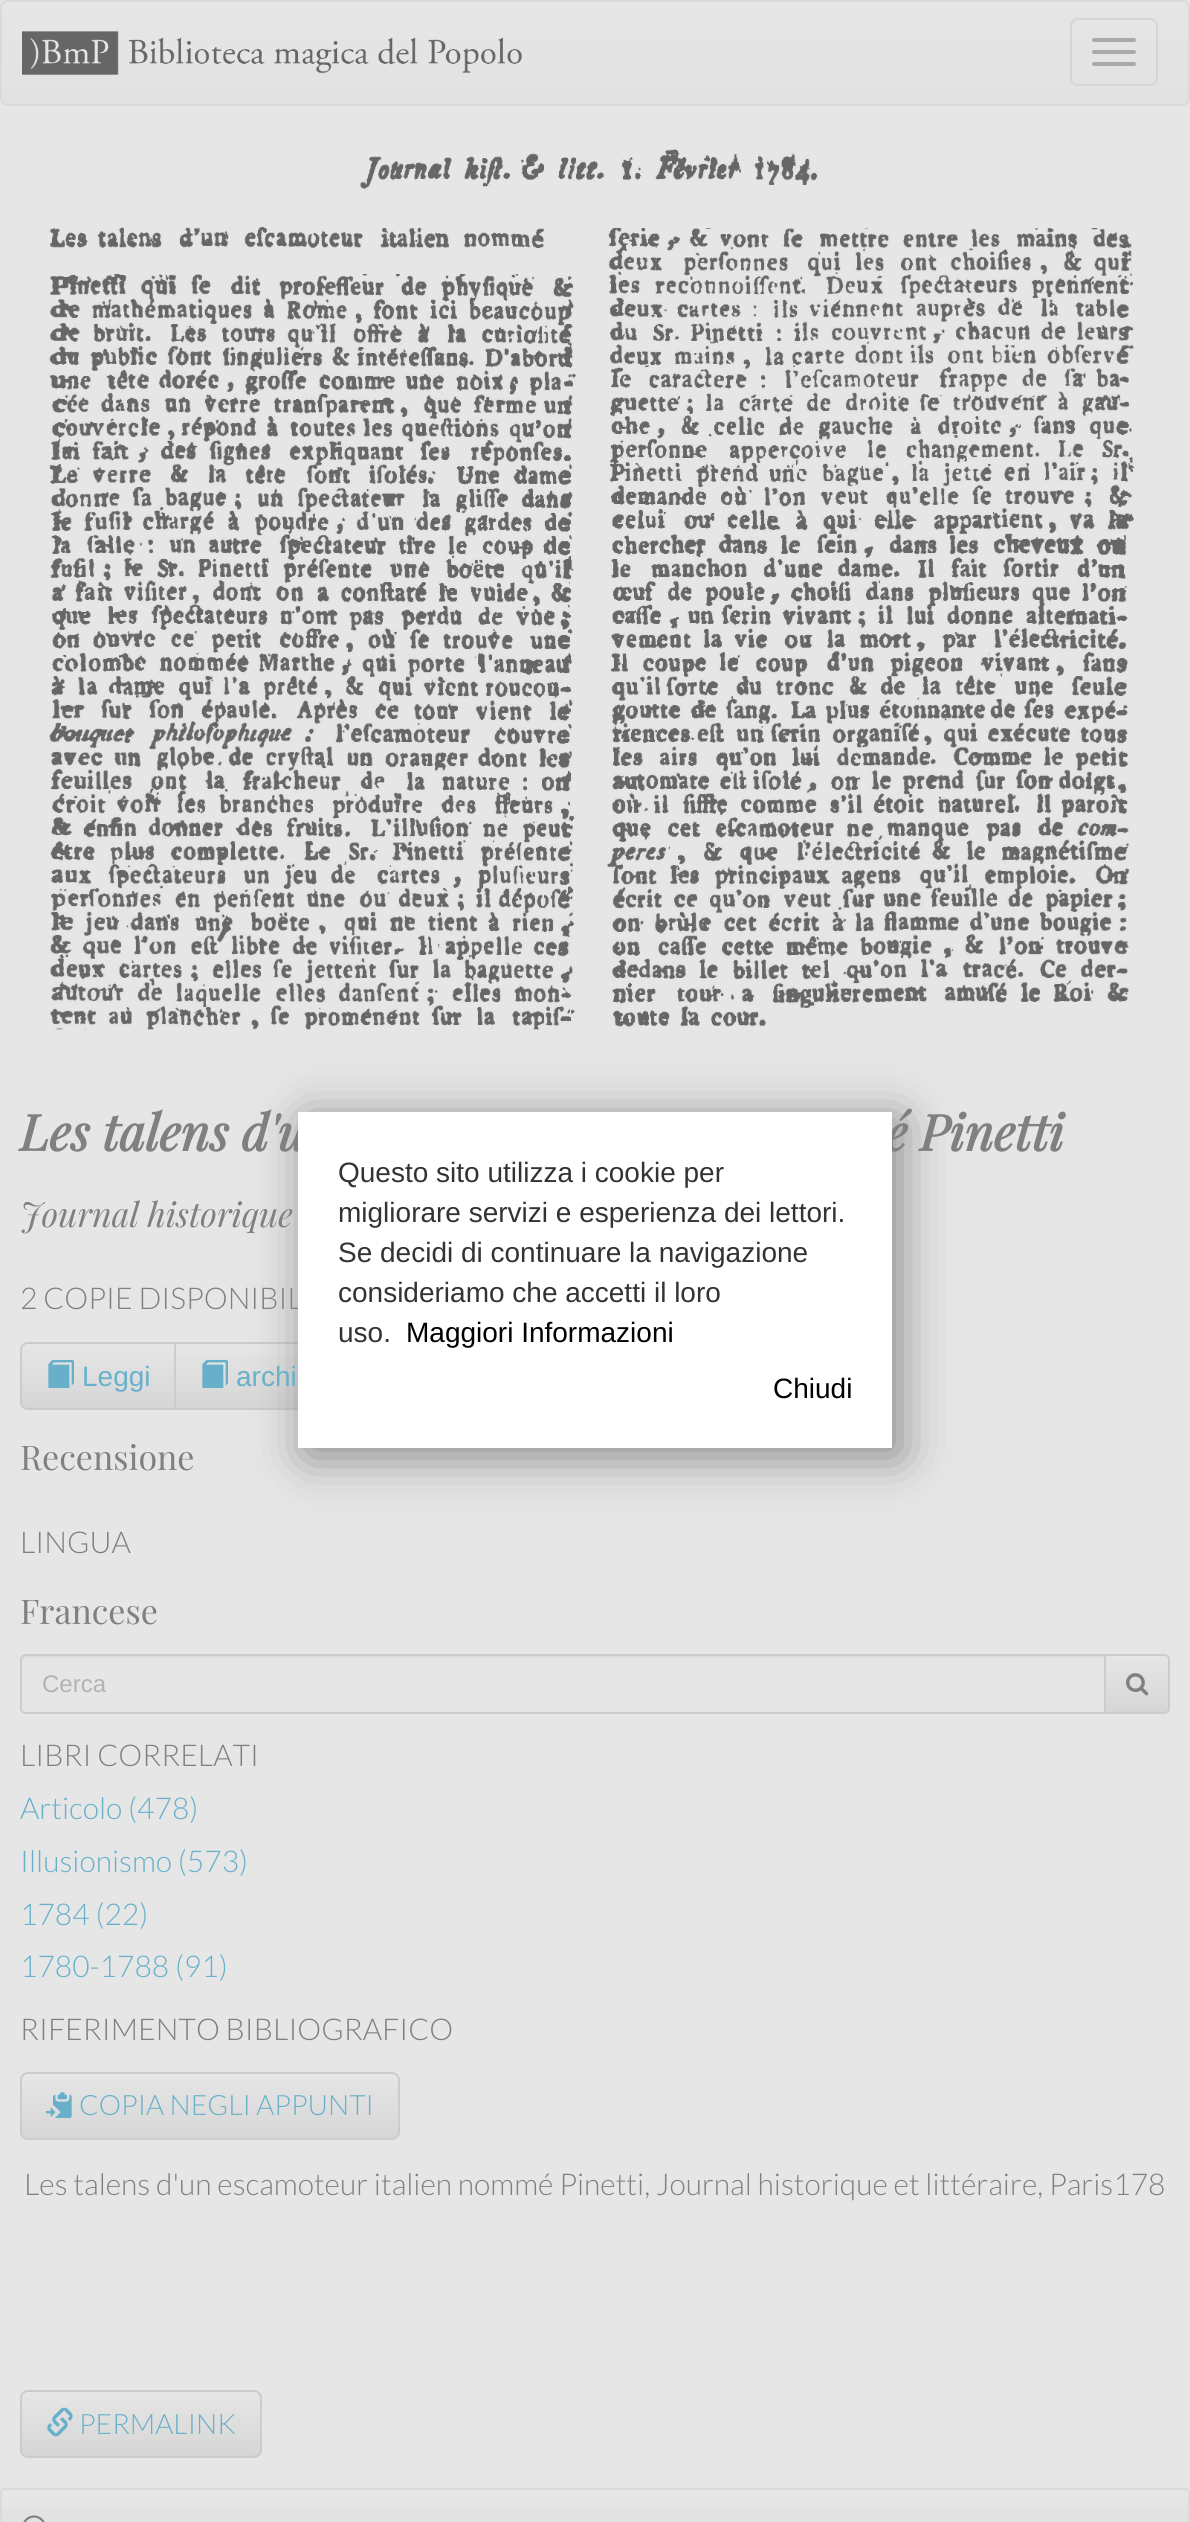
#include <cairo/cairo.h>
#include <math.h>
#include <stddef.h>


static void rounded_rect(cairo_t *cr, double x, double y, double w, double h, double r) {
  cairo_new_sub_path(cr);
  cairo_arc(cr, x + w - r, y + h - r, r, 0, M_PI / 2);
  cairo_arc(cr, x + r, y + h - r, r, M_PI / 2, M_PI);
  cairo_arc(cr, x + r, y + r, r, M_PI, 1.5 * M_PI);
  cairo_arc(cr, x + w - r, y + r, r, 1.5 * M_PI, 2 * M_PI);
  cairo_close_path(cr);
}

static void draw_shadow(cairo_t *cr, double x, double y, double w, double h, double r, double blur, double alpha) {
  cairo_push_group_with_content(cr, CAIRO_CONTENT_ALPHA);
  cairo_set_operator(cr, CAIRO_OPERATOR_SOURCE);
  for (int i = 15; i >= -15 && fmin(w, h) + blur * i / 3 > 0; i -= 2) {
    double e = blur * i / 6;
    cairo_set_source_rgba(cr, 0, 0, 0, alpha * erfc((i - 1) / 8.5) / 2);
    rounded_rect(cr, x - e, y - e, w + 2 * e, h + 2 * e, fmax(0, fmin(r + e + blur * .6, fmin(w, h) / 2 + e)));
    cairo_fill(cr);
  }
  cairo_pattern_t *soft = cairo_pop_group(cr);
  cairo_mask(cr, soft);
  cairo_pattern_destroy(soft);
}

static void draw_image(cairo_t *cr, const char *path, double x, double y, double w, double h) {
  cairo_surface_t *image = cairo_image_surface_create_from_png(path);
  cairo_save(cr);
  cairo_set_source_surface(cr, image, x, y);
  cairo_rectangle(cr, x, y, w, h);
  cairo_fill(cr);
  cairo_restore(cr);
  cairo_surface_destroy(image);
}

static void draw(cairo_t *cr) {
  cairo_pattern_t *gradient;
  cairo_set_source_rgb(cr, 230 / 255.0, 230 / 255.0, 230 / 255.0);
  cairo_paint(cr);
  cairo_save(cr);
  rounded_rect(cr, 0, 0, 1190, 106, 8);
  cairo_clip(cr);
  gradient = cairo_pattern_create_linear(595, 2, 595, 104);
  cairo_pattern_add_color_stop_rgba(gradient, 0, 230 / 255.0, 230 / 255.0, 230 / 255.0, 1);
  cairo_pattern_add_color_stop_rgba(gradient, 1, 226 / 255.0, 226 / 255.0, 226 / 255.0, 1);
  cairo_set_source(cr, gradient);
  cairo_pattern_destroy(gradient);
  cairo_rectangle(cr, 0, 2, 1190, 102);
  cairo_fill(cr);
  cairo_restore(cr);
  rounded_rect(cr, 1, 1, 1188, 104, 7);
  cairo_set_source_rgb(cr, 218 / 255.0, 218 / 255.0, 218 / 255.0);
  cairo_stroke(cr);
  draw_image(cr, "images/1.png", 22, 31, 500, 44);
  rounded_rect(cr, 1071, 19, 86, 66, 7);
  cairo_set_source_rgb(cr, 213 / 255.0, 213 / 255.0, 213 / 255.0);
  cairo_stroke(cr);
  cairo_set_source_rgb(cr, 170 / 255.0, 170 / 255.0, 170 / 255.0);
  rounded_rect(cr, 1092, 38, 44, 4, 2);
  cairo_fill(cr);
  rounded_rect(cr, 1092, 50, 44, 4, 2);
  cairo_fill(cr);
  rounded_rect(cr, 1092, 62, 44, 4, 2);
  cairo_fill(cr);
  draw_image(cr, "images/2.png", 48, 148, 1087, 882);
  cairo_save(cr);
  cairo_new_path(cr);
  cairo_move_to(cr, 28, 1342);
  cairo_line_to(cr, 176, 1342);
  cairo_line_to(cr, 176, 1410);
  cairo_line_to(cr, 28, 1410);
  cairo_curve_to(cr, 23.5, 1410, 20, 1406.5, 20, 1402);
  cairo_line_to(cr, 20, 1350);
  cairo_curve_to(cr, 20, 1345.5, 23.5, 1342, 28, 1342);
  cairo_close_path(cr);
  cairo_clip(cr);
  gradient = cairo_pattern_create_linear(98, 1344, 98, 1408);
  cairo_pattern_add_color_stop_rgba(gradient, 0, 230 / 255.0, 230 / 255.0, 230 / 255.0, 1);
  cairo_pattern_add_color_stop_rgba(gradient, 1, 214 / 255.0, 214 / 255.0, 214 / 255.0, 1);
  cairo_set_source(cr, gradient);
  cairo_pattern_destroy(gradient);
  cairo_rectangle(cr, 20, 1344, 154, 64);
  cairo_fill(cr);
  cairo_restore(cr);
  cairo_new_path(cr);
  cairo_move_to(cr, 28, 1343);
  cairo_line_to(cr, 175, 1343);
  cairo_line_to(cr, 175, 1409);
  cairo_line_to(cr, 28, 1409);
  cairo_curve_to(cr, 24, 1409, 21, 1406, 21, 1402);
  cairo_line_to(cr, 21, 1350);
  cairo_curve_to(cr, 21, 1346, 24, 1343, 28, 1343);
  cairo_close_path(cr);
  cairo_set_source_rgb(cr, 204 / 255.0, 204 / 255.0, 204 / 255.0);
  cairo_stroke(cr);
  draw_image(cr, "images/3.png", 48, 1360, 26, 28);
  gradient = cairo_pattern_create_linear(287, 1344, 287, 1408);
  cairo_pattern_add_color_stop_rgba(gradient, 0, 230 / 255.0, 230 / 255.0, 230 / 255.0, 1);
  cairo_pattern_add_color_stop_rgba(gradient, 1, 214 / 255.0, 214 / 255.0, 214 / 255.0, 1);
  cairo_set_source(cr, gradient);
  cairo_pattern_destroy(gradient);
  cairo_rectangle(cr, 176, 1354, 122, 54);
  cairo_fill(cr);
  cairo_rectangle(cr, 175, 1343, 224, 66);
  cairo_set_source_rgb(cr, 204 / 255.0, 204 / 255.0, 204 / 255.0);
  cairo_stroke(cr);
  draw_image(cr, "images/3.png", 202, 1360, 26, 28);
  cairo_set_source_rgb(cr, 220 / 255.0, 220 / 255.0, 220 / 255.0);
  cairo_new_path(cr);
  cairo_move_to(cr, 26, 1658);
  cairo_line_to(cr, 1104, 1658);
  cairo_line_to(cr, 1104, 1656);
  cairo_line_to(cr, 26, 1656);
  cairo_curve_to(cr, 24, 1656, 22, 1658, 22, 1660);
  cairo_line_to(cr, 22, 1662);
  cairo_curve_to(cr, 22, 1660, 24, 1658, 26, 1658);
  cairo_close_path(cr);
  cairo_fill(cr);
  cairo_new_path(cr);
  cairo_move_to(cr, 26, 1655);
  cairo_line_to(cr, 1105, 1655);
  cairo_line_to(cr, 1105, 1713);
  cairo_line_to(cr, 26, 1713);
  cairo_curve_to(cr, 23, 1713, 21, 1711, 21, 1708);
  cairo_line_to(cr, 21, 1660);
  cairo_curve_to(cr, 21, 1657, 23, 1655, 26, 1655);
  cairo_close_path(cr);
  cairo_set_source_rgb(cr, 204 / 255.0, 204 / 255.0, 204 / 255.0);
  cairo_stroke(cr);
  cairo_save(cr);
  cairo_new_path(cr);
  cairo_move_to(cr, 1104, 1654);
  cairo_line_to(cr, 1164, 1654);
  cairo_curve_to(cr, 1167.5, 1654, 1170, 1656.5, 1170, 1660);
  cairo_line_to(cr, 1170, 1708);
  cairo_curve_to(cr, 1170, 1711.5, 1167.5, 1714, 1164, 1714);
  cairo_line_to(cr, 1104, 1714);
  cairo_close_path(cr);
  cairo_clip(cr);
  gradient = cairo_pattern_create_linear(1137, 1656, 1137, 1712);
  cairo_pattern_add_color_stop_rgba(gradient, 0, 230 / 255.0, 230 / 255.0, 230 / 255.0, 1);
  cairo_pattern_add_color_stop_rgba(gradient, 1, 214 / 255.0, 214 / 255.0, 214 / 255.0, 1);
  cairo_set_source(cr, gradient);
  cairo_pattern_destroy(gradient);
  cairo_rectangle(cr, 1106, 1656, 64, 56);
  cairo_fill(cr);
  cairo_restore(cr);
  cairo_new_path(cr);
  cairo_move_to(cr, 1105, 1655);
  cairo_line_to(cr, 1164, 1655);
  cairo_curve_to(cr, 1167, 1655, 1169, 1657, 1169, 1660);
  cairo_line_to(cr, 1169, 1708);
  cairo_curve_to(cr, 1169, 1711, 1167, 1713, 1164, 1713);
  cairo_line_to(cr, 1105, 1713);
  cairo_close_path(cr);
  cairo_stroke(cr);
  draw_image(cr, "images/4.png", 1126, 1673, 23, 23);
  cairo_save(cr);
  rounded_rect(cr, 20, 2072, 380, 68, 8);
  cairo_clip(cr);
  gradient = cairo_pattern_create_linear(210, 2074, 210, 2138);
  cairo_pattern_add_color_stop_rgba(gradient, 0, 230 / 255.0, 230 / 255.0, 230 / 255.0, 1);
  cairo_pattern_add_color_stop_rgba(gradient, 1, 214 / 255.0, 214 / 255.0, 214 / 255.0, 1);
  cairo_set_source(cr, gradient);
  cairo_pattern_destroy(gradient);
  cairo_rectangle(cr, 20, 2074, 380, 64);
  cairo_fill(cr);
  cairo_restore(cr);
  rounded_rect(cr, 21, 2073, 378, 66, 7);
  cairo_stroke(cr);
  draw_image(cr, "images/5.png", 46, 2092, 26, 26);
  cairo_save(cr);
  rounded_rect(cr, 20, 2390, 242, 68, 8);
  cairo_clip(cr);
  gradient = cairo_pattern_create_linear(141, 2392, 141, 2456);
  cairo_pattern_add_color_stop_rgba(gradient, 0, 230 / 255.0, 230 / 255.0, 230 / 255.0, 1);
  cairo_pattern_add_color_stop_rgba(gradient, 1, 214 / 255.0, 214 / 255.0, 214 / 255.0, 1);
  cairo_set_source(cr, gradient);
  cairo_pattern_destroy(gradient);
  cairo_rectangle(cr, 20, 2392, 242, 64);
  cairo_fill(cr);
  cairo_restore(cr);
  rounded_rect(cr, 21, 2391, 240, 66, 7);
  cairo_stroke(cr);
  draw_image(cr, "images/6.png", 47, 2407, 26, 30);
  cairo_set_source_rgb(cr, 136 / 255.0, 136 / 255.0, 136 / 255.0);
  draw_shadow(cr, 306, 1120, 594, 336, 0, 25, 1);
  gradient = cairo_pattern_create_linear(595, 2490, 595, 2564);
  cairo_pattern_add_color_stop_rgba(gradient, 0, 230 / 255.0, 230 / 255.0, 230 / 255.0, 1);
  cairo_pattern_add_color_stop_rgba(gradient, 0.47, 225 / 255.0, 225 / 255.0, 225 / 255.0, 1);
  cairo_pattern_add_color_stop_rgba(gradient, 1, 226 / 255.0, 226 / 255.0, 226 / 255.0, 1);
  cairo_set_source(cr, gradient);
  cairo_pattern_destroy(gradient);
  cairo_rectangle(cr, 0, 2507, 1190, 15);
  cairo_fill(cr);
  rounded_rect(cr, 1, 2489, 1188, 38, 3);
  cairo_set_source_rgb(cr, 218 / 255.0, 218 / 255.0, 218 / 255.0);
  cairo_stroke(cr);
  draw_image(cr, "images/7.png", 23, 2515, 22, 7);
  cairo_select_font_face(cr, "Playfair Display", CAIRO_FONT_SLANT_ITALIC, CAIRO_FONT_WEIGHT_BOLD);
  cairo_set_font_size(cr, 50);
  cairo_set_source_rgb(cr, 128 / 255.0, 128 / 255.0, 128 / 255.0);
  cairo_move_to(cr, 20, 1151);
  cairo_show_text(cr, "Les talens d'u");
  cairo_move_to(cr, 886, 1151);
  cairo_show_text(cr, "é Pinetti");
  cairo_select_font_face(cr, "Playfair Display", CAIRO_FONT_SLANT_ITALIC, CAIRO_FONT_WEIGHT_NORMAL);
  cairo_set_font_size(cr, 34);
  cairo_move_to(cr, 20, 1227);
  cairo_show_text(cr, "Journal historique");
  cairo_select_font_face(cr, "Lato Light", CAIRO_FONT_SLANT_NORMAL, CAIRO_FONT_WEIGHT_NORMAL);
  cairo_set_font_size(cr, 30);
  cairo_move_to(cr, 20, 1309);
  cairo_show_text(cr, "2 COPIE DISPONIBIL");
  cairo_select_font_face(cr, "Liberation Sans", CAIRO_FONT_SLANT_NORMAL, CAIRO_FONT_WEIGHT_NORMAL);
  cairo_set_font_size(cr, 28);
  cairo_set_source_rgb(cr, 104 / 255.0, 177 / 255.0, 202 / 255.0);
  cairo_move_to(cr, 82, 1386);
  cairo_show_text(cr, "Leggi");
  cairo_move_to(cr, 236, 1386);
  cairo_show_text(cr, "archi");
  cairo_select_font_face(cr, "Playfair Display", CAIRO_FONT_SLANT_NORMAL, CAIRO_FONT_WEIGHT_NORMAL);
  cairo_set_font_size(cr, 34);
  cairo_set_source_rgb(cr, 128 / 255.0, 128 / 255.0, 128 / 255.0);
  cairo_move_to(cr, 20, 1470);
  cairo_show_text(cr, "Recensione");
  cairo_select_font_face(cr, "Lato Light", CAIRO_FONT_SLANT_NORMAL, CAIRO_FONT_WEIGHT_NORMAL);
  cairo_set_font_size(cr, 30);
  cairo_move_to(cr, 20, 1553);
  cairo_show_text(cr, "LINGUA");
  cairo_select_font_face(cr, "Playfair Display", CAIRO_FONT_SLANT_NORMAL, CAIRO_FONT_WEIGHT_NORMAL);
  cairo_set_font_size(cr, 34);
  cairo_move_to(cr, 20, 1624);
  cairo_show_text(cr, "Francese");
  cairo_select_font_face(cr, "Liberation Sans", CAIRO_FONT_SLANT_NORMAL, CAIRO_FONT_WEIGHT_NORMAL);
  cairo_set_font_size(cr, 24);
  cairo_set_source_rgb(cr, 179 / 255.0, 179 / 255.0, 179 / 255.0);
  cairo_move_to(cr, 42, 1692);
  cairo_show_text(cr, "Cerca");
  cairo_select_font_face(cr, "Lato Light", CAIRO_FONT_SLANT_NORMAL, CAIRO_FONT_WEIGHT_NORMAL);
  cairo_set_font_size(cr, 30);
  cairo_set_source_rgb(cr, 128 / 255.0, 128 / 255.0, 128 / 255.0);
  cairo_move_to(cr, 20, 1766);
  cairo_show_text(cr, "LIBRI CORRELATI");
  cairo_set_source_rgb(cr, 104 / 255.0, 177 / 255.0, 202 / 255.0);
  cairo_move_to(cr, 20, 1819);
  cairo_show_text(cr, "Articolo (478)");
  cairo_move_to(cr, 20, 1872);
  cairo_show_text(cr, "Illusionismo (573)");
  cairo_move_to(cr, 20, 1925);
  cairo_show_text(cr, "1784 (22)");
  cairo_move_to(cr, 20, 1977);
  cairo_show_text(cr, "1780-1788 (91)");
  cairo_set_source_rgb(cr, 128 / 255.0, 128 / 255.0, 128 / 255.0);
  cairo_move_to(cr, 20, 2040);
  cairo_show_text(cr, "RIFERIMENTO BIBLIOGRAFICO");
  cairo_set_font_size(cr, 28);
  cairo_set_source_rgb(cr, 104 / 255.0, 177 / 255.0, 202 / 255.0);
  cairo_move_to(cr, 79, 2115);
  cairo_show_text(cr, "COPIA NEGLI APPUNTI");
  cairo_set_font_size(cr, 30);
  cairo_set_source_rgb(cr, 128 / 255.0, 128 / 255.0, 128 / 255.0);
  cairo_move_to(cr, 24, 2195);
  cairo_show_text(cr, "Les talens d'un escamoteur italien nommé Pinetti, Journal historique et littéraire, Paris178");
  cairo_set_font_size(cr, 28);
  cairo_set_source_rgb(cr, 104 / 255.0, 177 / 255.0, 202 / 255.0);
  cairo_move_to(cr, 79, 2434);
  cairo_show_text(cr, "PERMALINK");
  cairo_set_source_rgb(cr, 1, 1, 1);
  cairo_rectangle(cr, 298, 1112, 594, 336);
  cairo_fill(cr);
  cairo_select_font_face(cr, "Liberation Sans", CAIRO_FONT_SLANT_NORMAL, CAIRO_FONT_WEIGHT_NORMAL);
  cairo_set_source_rgb(cr, 51 / 255.0, 51 / 255.0, 51 / 255.0);
  cairo_move_to(cr, 338, 1182);
  cairo_show_text(cr, "Questo sito utilizza i cookie per");
  cairo_move_to(cr, 338, 1222);
  cairo_show_text(cr, "migliorare servizi e esperienza dei lettori.");
  cairo_move_to(cr, 338, 1262);
  cairo_show_text(cr, "Se decidi di continuare la navigazione");
  cairo_move_to(cr, 338, 1302);
  cairo_show_text(cr, "consideriamo che accetti il loro");
  cairo_move_to(cr, 338, 1342);
  cairo_show_text(cr, "uso.");
  cairo_set_source_rgb(cr, 0, 0, 0);
  cairo_move_to(cr, 406, 1342);
  cairo_show_text(cr, "Maggiori Informazioni");
  cairo_move_to(cr, 773, 1398);
  cairo_show_text(cr, "Chiudi");
}

int main(void) {
  cairo_surface_t *surface = cairo_image_surface_create(CAIRO_FORMAT_RGB24, 1190, 2522);
  cairo_t *cr = cairo_create(surface);
  cairo_font_options_t *options = cairo_font_options_create();
  cairo_font_options_set_hint_metrics(options, CAIRO_HINT_METRICS_OFF);
  cairo_font_options_set_hint_style(options, CAIRO_HINT_STYLE_NONE);
  cairo_set_font_options(cr, options);
  cairo_set_miter_limit(cr, 4);
  draw(cr);
  cairo_surface_write_to_png(surface, "out.png");
  cairo_font_options_destroy(options);
  cairo_destroy(cr);
  cairo_surface_destroy(surface);
  return 0;
}
